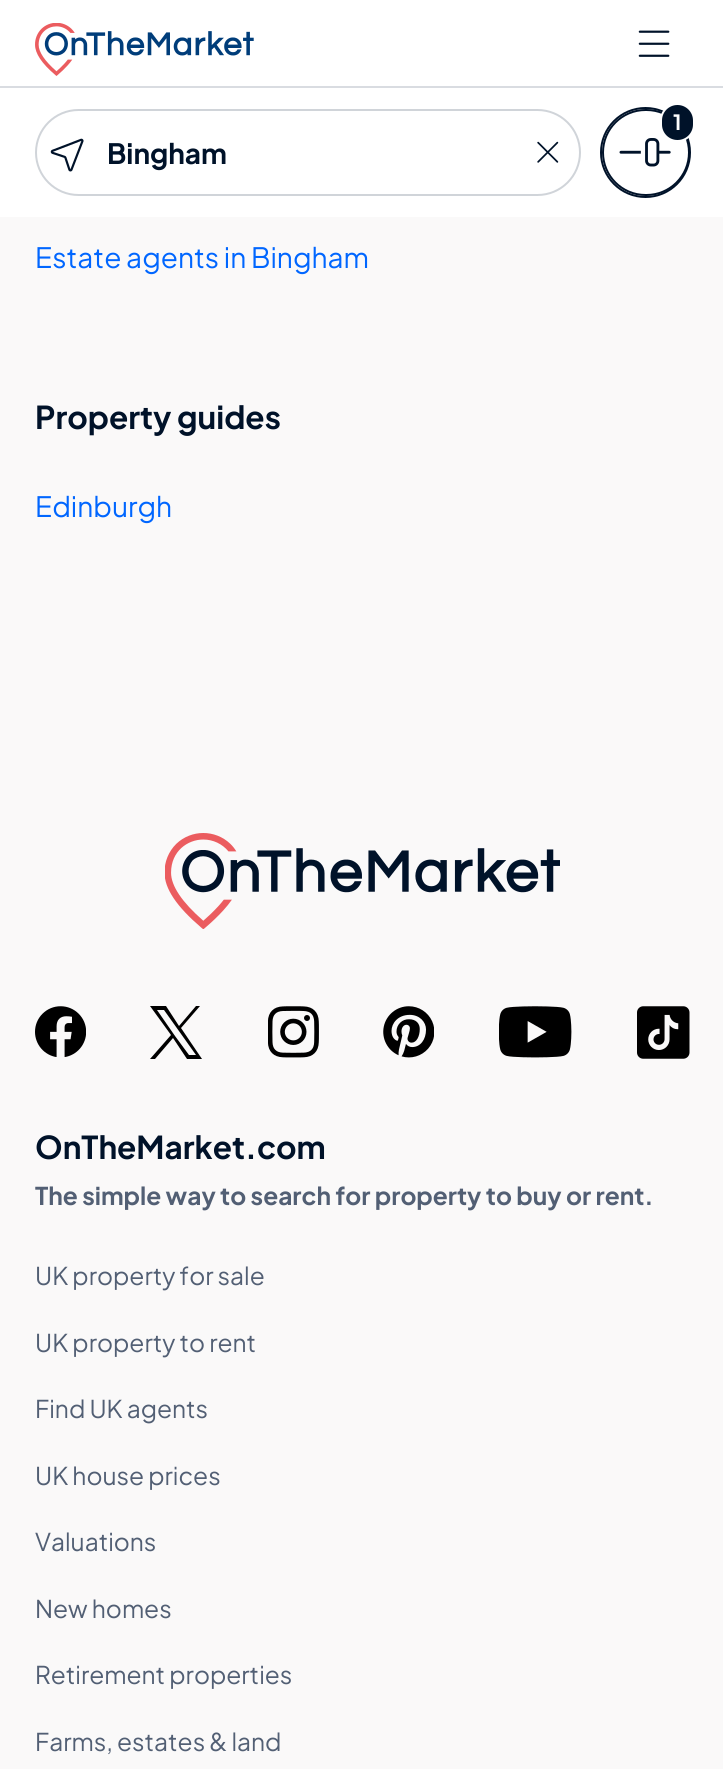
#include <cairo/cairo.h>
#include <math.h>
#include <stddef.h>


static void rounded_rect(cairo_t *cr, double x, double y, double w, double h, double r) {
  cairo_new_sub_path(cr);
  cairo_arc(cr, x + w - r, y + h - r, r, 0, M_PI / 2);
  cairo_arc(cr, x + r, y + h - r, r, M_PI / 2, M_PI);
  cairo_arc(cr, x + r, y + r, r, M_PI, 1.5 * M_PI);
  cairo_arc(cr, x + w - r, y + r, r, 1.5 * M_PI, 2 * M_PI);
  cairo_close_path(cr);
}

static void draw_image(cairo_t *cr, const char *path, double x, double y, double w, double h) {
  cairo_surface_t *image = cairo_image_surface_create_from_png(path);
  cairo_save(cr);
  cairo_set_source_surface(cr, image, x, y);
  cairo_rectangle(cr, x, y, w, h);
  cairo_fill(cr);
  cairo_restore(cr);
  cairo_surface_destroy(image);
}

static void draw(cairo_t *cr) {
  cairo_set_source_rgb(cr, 250 / 255.0, 249 / 255.0, 249 / 255.0);
  cairo_paint(cr);
  cairo_set_source_rgb(cr, 1, 1, 1);
  cairo_rectangle(cr, 0, 0, 723, 86);
  cairo_fill(cr);
  cairo_set_source_rgb(cr, 217 / 255.0, 220 / 255.0, 225 / 255.0);
  cairo_rectangle(cr, 0, 86, 723, 2);
  cairo_fill(cr);
  draw_image(cr, "images/1.png", 35, 23, 219, 53);
  draw_image(cr, "images/2.png", 638, 30, 32, 27);
  cairo_set_source_rgb(cr, 1, 1, 1);
  cairo_rectangle(cr, 0, 88, 723, 129);
  cairo_fill(cr);
  cairo_arc(cr, 645.5, 152.5, 44.5, 0, 2 * M_PI);
  cairo_set_source_rgb(cr, 0, 18 / 255.0, 41 / 255.0);
  cairo_stroke(cr);
  rounded_rect(cr, 603, 110, 86, 85, 42.5);
  cairo_stroke(cr);
  draw_image(cr, "images/3.png", 619, 138, 52, 29);
  rounded_rect(cr, 661, 104, 33, 37, 16.5);
  cairo_fill_preserve(cr);
  cairo_set_source_rgb(cr, 1, 1, 1);
  cairo_stroke(cr);
  rounded_rect(cr, 36, 110, 544, 85, 42.5);
  cairo_set_source_rgb(cr, 208 / 255.0, 212 / 255.0, 217 / 255.0);
  cairo_stroke(cr);
  draw_image(cr, "images/4.png", 50, 138, 34, 34);
  draw_image(cr, "images/5.png", 537, 141, 22, 22);
  draw_image(cr, "images/6.png", 165, 833, 395, 96);
  draw_image(cr, "images/7.png", 35, 1006, 51, 51);
  cairo_set_source_rgb(cr, 0, 0, 0);
  cairo_new_path(cr);
  cairo_move_to(cr, 181, 1028);
  cairo_line_to(cr, 200, 1006);
  cairo_line_to(cr, 196, 1006);
  cairo_line_to(cr, 179, 1026);
  cairo_line_to(cr, 166, 1006);
  cairo_line_to(cr, 150, 1006);
  cairo_line_to(cr, 171, 1035);
  cairo_line_to(cr, 150, 1059);
  cairo_line_to(cr, 155, 1059);
  cairo_line_to(cr, 173, 1038);
  cairo_line_to(cr, 187, 1059);
  cairo_line_to(cr, 202, 1059);
  cairo_close_path(cr);
  cairo_move_to(cr, 175, 1036);
  cairo_line_to(cr, 157, 1010);
  cairo_line_to(cr, 164, 1010);
  cairo_line_to(cr, 196, 1055);
  cairo_line_to(cr, 189, 1055);
  cairo_close_path(cr);
  cairo_fill(cr);
  draw_image(cr, "images/8.png", 268, 1006, 51, 52);
  draw_image(cr, "images/9.png", 383, 1006, 51, 52);
  draw_image(cr, "images/10.png", 499, 1006, 73, 52);
  draw_image(cr, "images/11.png", 637, 1006, 53, 53);
  cairo_select_font_face(cr, "Plus Jakarta Sans", CAIRO_FONT_SLANT_NORMAL, CAIRO_FONT_WEIGHT_BOLD);
  cairo_set_font_size(cr, 21);
  cairo_set_source_rgb(cr, 1, 1, 1);
  cairo_move_to(cr, 673, 130);
  cairo_show_text(cr, "1");
  cairo_set_font_size(cr, 28);
  cairo_set_source_rgb(cr, 0, 18 / 255.0, 41 / 255.0);
  cairo_move_to(cr, 107, 164);
  cairo_show_text(cr, "Bingham");
  cairo_select_font_face(cr, "Plus Jakarta Sans", CAIRO_FONT_SLANT_NORMAL, CAIRO_FONT_WEIGHT_NORMAL);
  cairo_set_source_rgb(cr, 0, 102 / 255.0, 1);
  cairo_move_to(cr, 35, 268);
  cairo_show_text(cr, "Estate agents in Bingham");
  cairo_select_font_face(cr, "Plus Jakarta Sans", CAIRO_FONT_SLANT_NORMAL, CAIRO_FONT_WEIGHT_BOLD);
  cairo_set_font_size(cr, 31.5);
  cairo_set_source_rgb(cr, 0, 18 / 255.0, 41 / 255.0);
  cairo_move_to(cr, 35, 429);
  cairo_show_text(cr, "Property guides");
  cairo_select_font_face(cr, "Plus Jakarta Sans", CAIRO_FONT_SLANT_NORMAL, CAIRO_FONT_WEIGHT_NORMAL);
  cairo_set_font_size(cr, 28);
  cairo_set_source_rgb(cr, 0, 102 / 255.0, 1);
  cairo_move_to(cr, 35, 517);
  cairo_show_text(cr, "Edinburgh");
  cairo_select_font_face(cr, "Plus Jakarta Sans", CAIRO_FONT_SLANT_NORMAL, CAIRO_FONT_WEIGHT_BOLD);
  cairo_set_font_size(cr, 31.5);
  cairo_set_source_rgb(cr, 0, 18 / 255.0, 41 / 255.0);
  cairo_move_to(cr, 35, 1159);
  cairo_show_text(cr, "OnTheMarket.com");
  cairo_set_font_size(cr, 24.5);
  cairo_set_source_rgb(cr, 82 / 255.0, 95 / 255.0, 116 / 255.0);
  cairo_move_to(cr, 35, 1205);
  cairo_show_text(cr, "The simple way to search for property to buy or rent.");
  cairo_select_font_face(cr, "Plus Jakarta Sans", CAIRO_FONT_SLANT_NORMAL, CAIRO_FONT_WEIGHT_NORMAL);
  cairo_move_to(cr, 35, 1285);
  cairo_show_text(cr, "UK property for sale");
  cairo_move_to(cr, 35, 1352);
  cairo_show_text(cr, "UK property to rent");
  cairo_move_to(cr, 35, 1418);
  cairo_show_text(cr, "Find UK agents");
  cairo_move_to(cr, 35, 1485);
  cairo_show_text(cr, "UK house prices");
  cairo_move_to(cr, 35, 1551);
  cairo_show_text(cr, "Valuations");
  cairo_move_to(cr, 35, 1618);
  cairo_show_text(cr, "New homes");
  cairo_move_to(cr, 35, 1684);
  cairo_show_text(cr, "Retirement properties");
  cairo_move_to(cr, 35, 1751);
  cairo_show_text(cr, "Farms, estates & land");
}

int main(void) {
  cairo_surface_t *surface = cairo_image_surface_create(CAIRO_FORMAT_RGB24, 723, 1769);
  cairo_t *cr = cairo_create(surface);
  cairo_font_options_t *options = cairo_font_options_create();
  cairo_font_options_set_hint_metrics(options, CAIRO_HINT_METRICS_OFF);
  cairo_font_options_set_hint_style(options, CAIRO_HINT_STYLE_NONE);
  cairo_set_font_options(cr, options);
  cairo_set_miter_limit(cr, 4);
  draw(cr);
  cairo_surface_write_to_png(surface, "out.png");
  cairo_font_options_destroy(options);
  cairo_destroy(cr);
  cairo_surface_destroy(surface);
  return 0;
}
